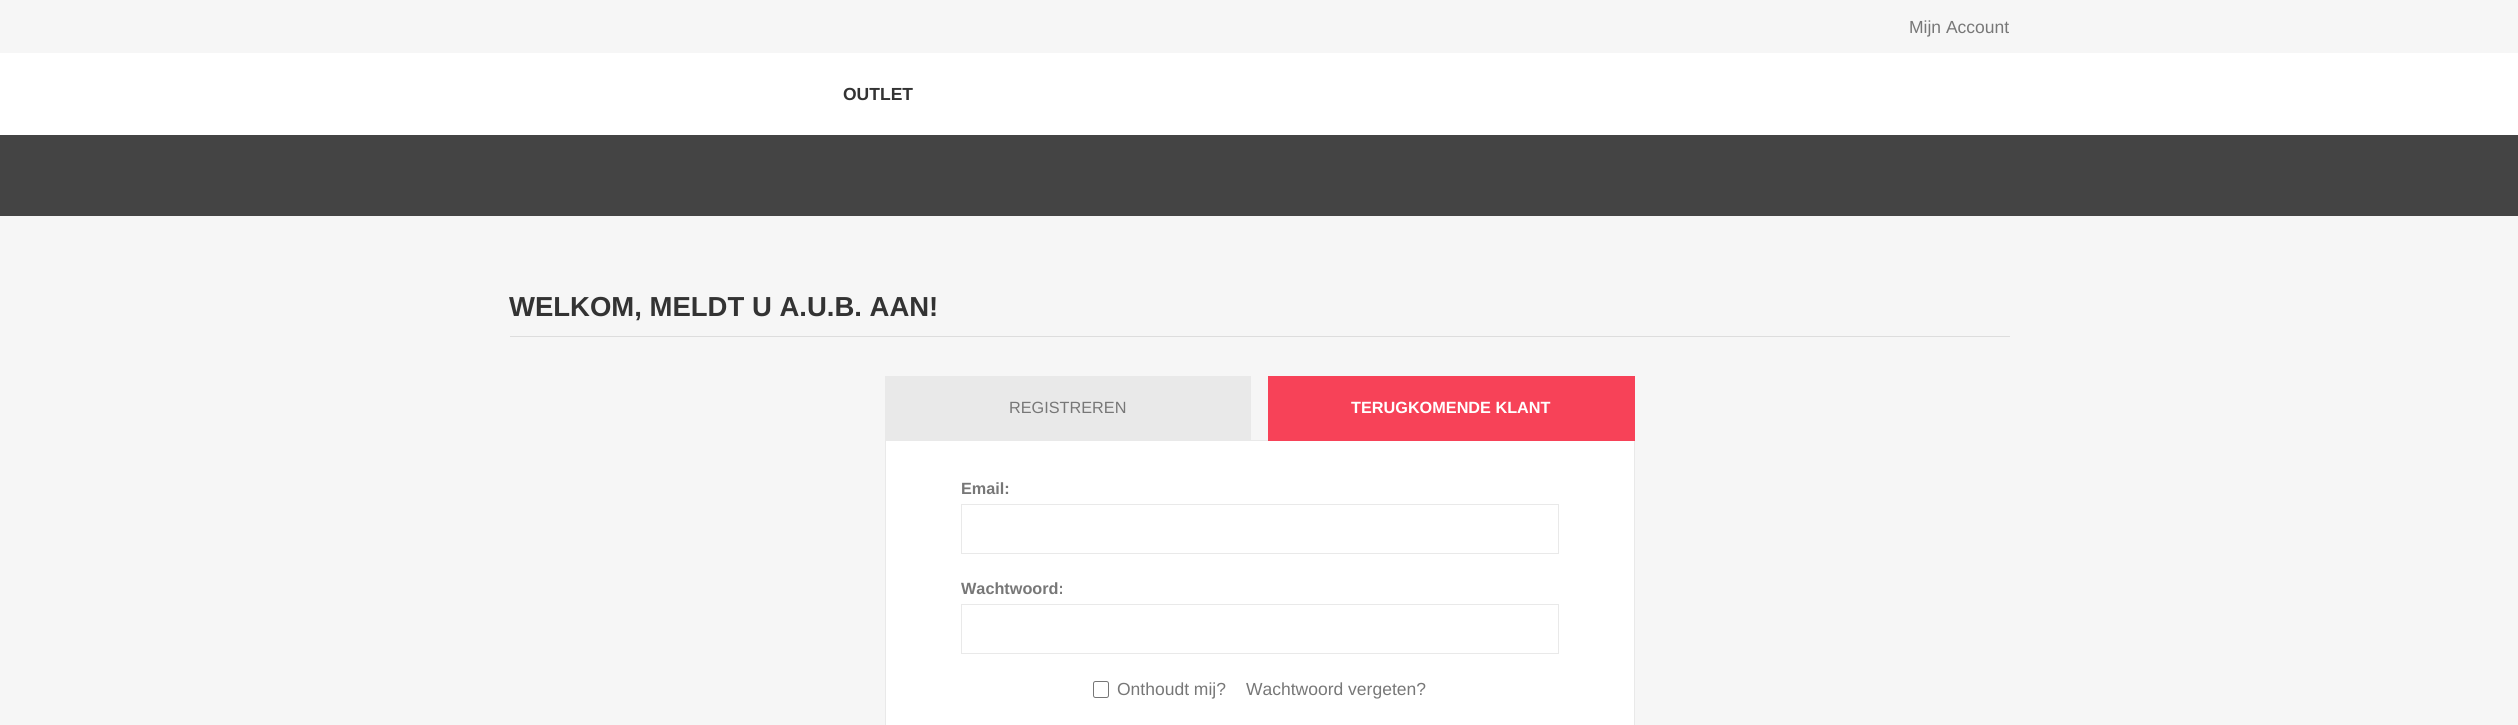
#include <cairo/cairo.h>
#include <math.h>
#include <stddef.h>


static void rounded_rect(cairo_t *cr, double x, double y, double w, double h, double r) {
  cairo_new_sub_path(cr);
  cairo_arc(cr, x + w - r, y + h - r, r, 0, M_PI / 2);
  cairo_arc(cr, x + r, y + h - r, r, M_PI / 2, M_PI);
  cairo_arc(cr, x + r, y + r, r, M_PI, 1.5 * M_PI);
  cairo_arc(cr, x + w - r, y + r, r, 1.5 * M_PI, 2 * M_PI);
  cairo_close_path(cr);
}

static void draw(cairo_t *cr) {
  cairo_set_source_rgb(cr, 246 / 255.0, 246 / 255.0, 246 / 255.0);
  cairo_paint(cr);
  cairo_set_source_rgb(cr, 1, 1, 1);
  cairo_rectangle(cr, 0, 53, 2518, 82);
  cairo_fill(cr);
  cairo_set_source_rgb(cr, 68 / 255.0, 68 / 255.0, 68 / 255.0);
  cairo_rectangle(cr, 0, 135, 2518, 81);
  cairo_fill(cr);
  cairo_set_source_rgb(cr, 221 / 255.0, 221 / 255.0, 221 / 255.0);
  cairo_rectangle(cr, 510, 336, 1500, 1);
  cairo_fill(cr);
  cairo_set_source_rgb(cr, 1, 1, 1);
  cairo_rectangle(cr, 885.5, 440.5, 749, 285);
  cairo_fill_preserve(cr);
  cairo_set_source_rgb(cr, 233 / 255.0, 233 / 255.0, 233 / 255.0);
  cairo_set_line_width(cr, 1);
  cairo_stroke(cr);
  cairo_set_source_rgb(cr, 247 / 255.0, 66 / 255.0, 88 / 255.0);
  cairo_rectangle(cr, 1268, 376, 367, 65);
  cairo_fill(cr);
  cairo_rectangle(cr, 961.5, 504.5, 597, 49);
  cairo_set_source_rgb(cr, 233 / 255.0, 233 / 255.0, 233 / 255.0);
  cairo_stroke(cr);
  cairo_rectangle(cr, 961.5, 604.5, 597, 49);
  cairo_stroke(cr);
  rounded_rect(cr, 1093.5, 681.5, 15, 16, 2);
  cairo_set_source_rgb(cr, 118 / 255.0, 118 / 255.0, 118 / 255.0);
  cairo_stroke(cr);
  cairo_set_source_rgb(cr, 233 / 255.0, 233 / 255.0, 233 / 255.0);
  cairo_rectangle(cr, 885, 376, 366, 64);
  cairo_fill(cr);
  cairo_select_font_face(cr, "Liberation Sans", CAIRO_FONT_SLANT_NORMAL, CAIRO_FONT_WEIGHT_NORMAL);
  cairo_set_font_size(cr, 17.5);
  cairo_set_source_rgb(cr, 119 / 255.0, 119 / 255.0, 119 / 255.0);
  cairo_move_to(cr, 1909, 33);
  cairo_show_text(cr, "Mijn Account");
  cairo_select_font_face(cr, "Liberation Sans", CAIRO_FONT_SLANT_NORMAL, CAIRO_FONT_WEIGHT_BOLD);
  cairo_set_source_rgb(cr, 51 / 255.0, 51 / 255.0, 51 / 255.0);
  cairo_move_to(cr, 843, 100);
  cairo_show_text(cr, "OUTLET");
  cairo_set_font_size(cr, 27.5);
  cairo_move_to(cr, 509, 316);
  cairo_show_text(cr, "WELKOM, MELDT U A.U.B. AAN!");
  cairo_set_font_size(cr, 16.25);
  cairo_set_source_rgb(cr, 1, 1, 1);
  cairo_move_to(cr, 1351, 413);
  cairo_show_text(cr, "TERUGKOMENDE KLANT");
  cairo_set_source_rgb(cr, 119 / 255.0, 119 / 255.0, 119 / 255.0);
  cairo_move_to(cr, 961, 494);
  cairo_show_text(cr, "Email:");
  cairo_move_to(cr, 961, 594);
  cairo_show_text(cr, "Wachtwoord:");
  cairo_select_font_face(cr, "Liberation Sans", CAIRO_FONT_SLANT_NORMAL, CAIRO_FONT_WEIGHT_NORMAL);
  cairo_set_font_size(cr, 17.5);
  cairo_move_to(cr, 1117, 695);
  cairo_show_text(cr, "Onthoudt mij?");
  cairo_move_to(cr, 1246, 695);
  cairo_show_text(cr, "Wachtwoord vergeten?");
  cairo_set_font_size(cr, 16.25);
  cairo_move_to(cr, 1009, 413);
  cairo_show_text(cr, "REGISTREREN");
}

int main(void) {
  cairo_surface_t *surface = cairo_image_surface_create(CAIRO_FORMAT_RGB24, 2518, 725);
  cairo_t *cr = cairo_create(surface);
  cairo_font_options_t *options = cairo_font_options_create();
  cairo_font_options_set_hint_metrics(options, CAIRO_HINT_METRICS_OFF);
  cairo_font_options_set_hint_style(options, CAIRO_HINT_STYLE_NONE);
  cairo_set_font_options(cr, options);
  cairo_set_miter_limit(cr, 4);
  draw(cr);
  cairo_surface_write_to_png(surface, "out.png");
  cairo_font_options_destroy(options);
  cairo_destroy(cr);
  cairo_surface_destroy(surface);
  return 0;
}
